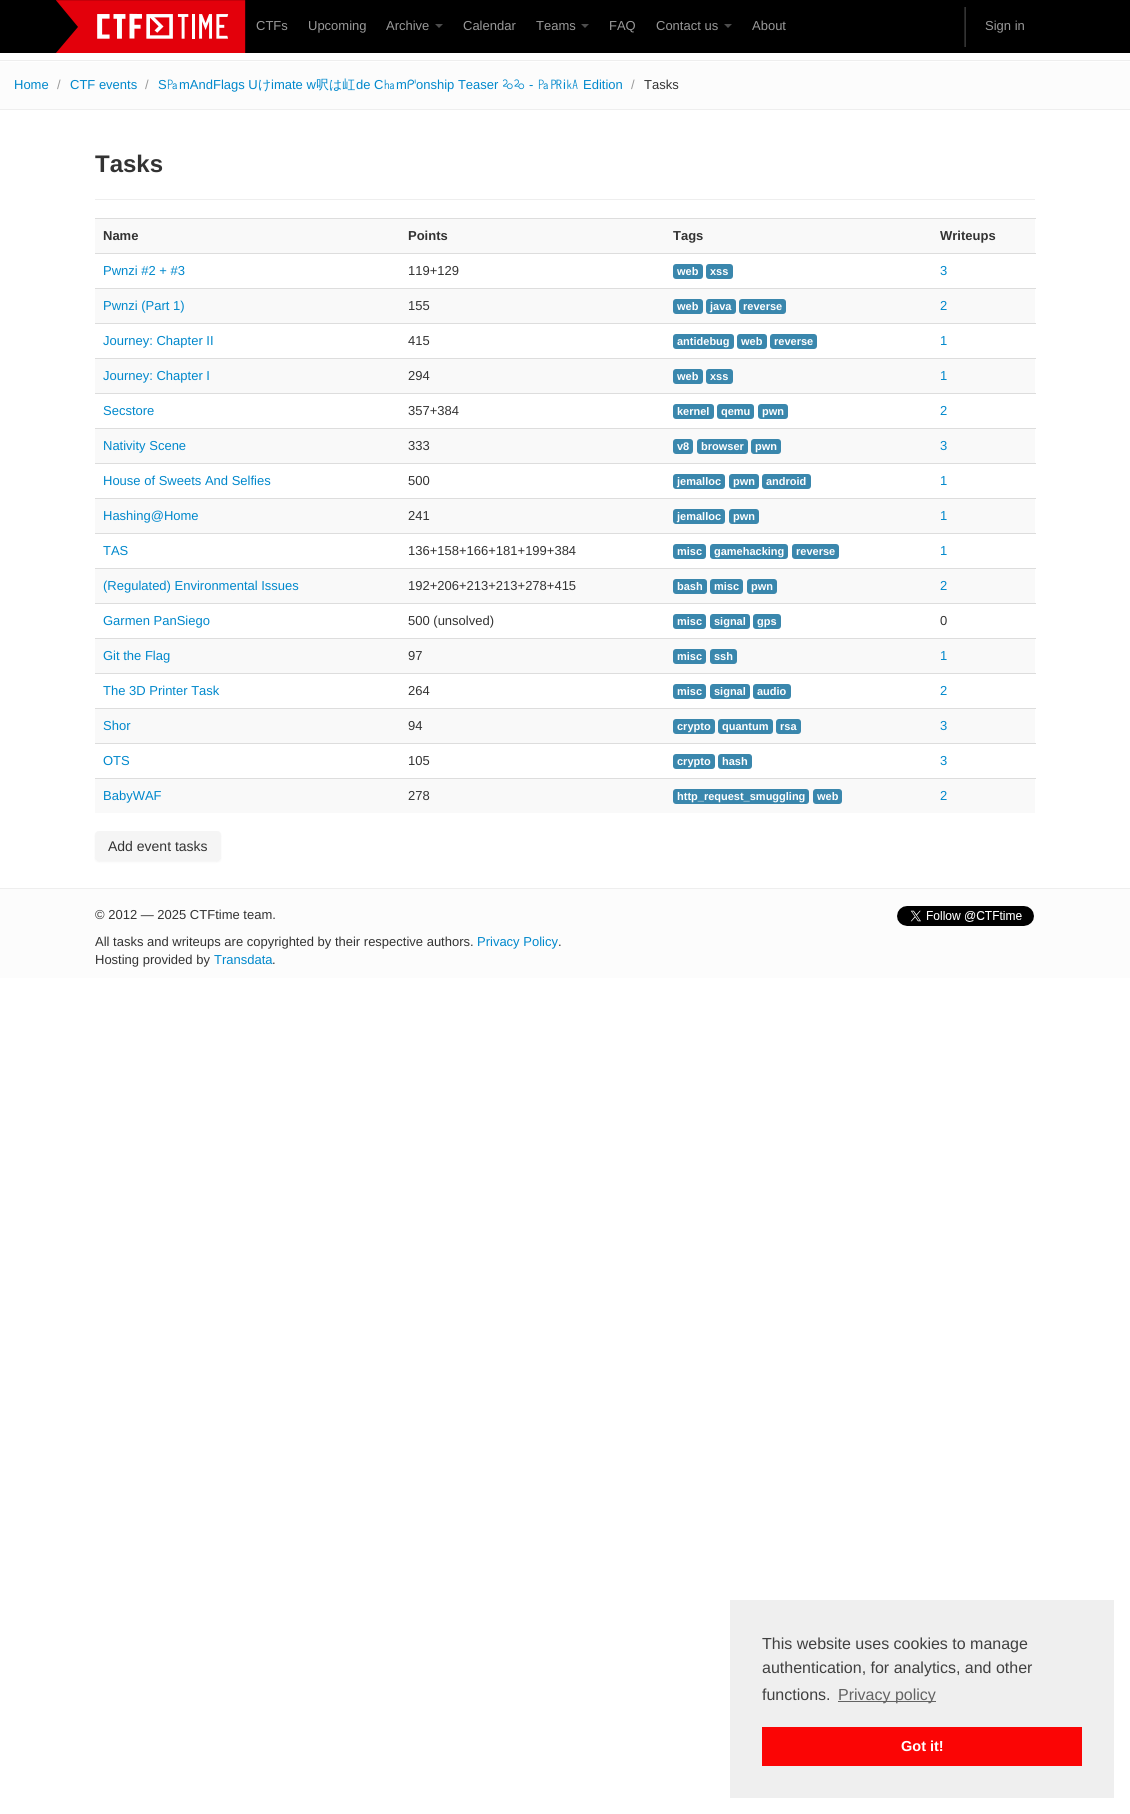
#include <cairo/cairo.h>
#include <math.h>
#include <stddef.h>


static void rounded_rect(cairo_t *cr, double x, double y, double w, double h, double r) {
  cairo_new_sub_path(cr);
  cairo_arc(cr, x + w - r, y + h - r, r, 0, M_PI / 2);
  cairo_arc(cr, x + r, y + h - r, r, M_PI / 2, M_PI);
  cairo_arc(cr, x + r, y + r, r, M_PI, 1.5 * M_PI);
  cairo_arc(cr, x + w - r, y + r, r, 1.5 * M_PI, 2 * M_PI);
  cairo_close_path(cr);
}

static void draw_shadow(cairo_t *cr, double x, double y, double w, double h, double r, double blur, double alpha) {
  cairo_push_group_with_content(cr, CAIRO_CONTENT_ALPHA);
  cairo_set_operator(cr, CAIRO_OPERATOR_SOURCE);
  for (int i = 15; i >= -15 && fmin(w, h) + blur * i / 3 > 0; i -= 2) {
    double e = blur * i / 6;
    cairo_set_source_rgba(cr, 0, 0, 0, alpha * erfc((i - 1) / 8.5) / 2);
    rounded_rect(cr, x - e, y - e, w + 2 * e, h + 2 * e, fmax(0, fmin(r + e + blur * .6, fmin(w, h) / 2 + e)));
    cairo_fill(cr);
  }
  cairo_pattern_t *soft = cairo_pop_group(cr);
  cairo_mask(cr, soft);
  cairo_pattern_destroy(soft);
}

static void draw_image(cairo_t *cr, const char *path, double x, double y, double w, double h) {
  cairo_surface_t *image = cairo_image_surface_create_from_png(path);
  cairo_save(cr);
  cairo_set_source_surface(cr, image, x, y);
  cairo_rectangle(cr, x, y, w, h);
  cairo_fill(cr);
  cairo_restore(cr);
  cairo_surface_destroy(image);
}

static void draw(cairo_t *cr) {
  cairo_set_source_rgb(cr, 1, 1, 1);
  cairo_paint(cr);
  cairo_set_source_rgb(cr, 0, 0, 0);
  cairo_rectangle(cr, 0, 0, 1130, 53);
  cairo_fill(cr);
  draw_image(cr, "images/1.png", 56, 0, 190, 53);
  cairo_set_source_rgb(cr, 77 / 255.0, 77 / 255.0, 77 / 255.0);
  cairo_new_path(cr);
  cairo_move_to(cr, 435, 24);
  cairo_line_to(cr, 443, 24);
  cairo_line_to(cr, 439, 28);
  cairo_close_path(cr);
  cairo_fill(cr);
  cairo_new_path(cr);
  cairo_move_to(cr, 581, 24);
  cairo_line_to(cr, 589, 24);
  cairo_line_to(cr, 585, 28);
  cairo_close_path(cr);
  cairo_fill(cr);
  cairo_new_path(cr);
  cairo_move_to(cr, 724, 24);
  cairo_line_to(cr, 732, 24);
  cairo_line_to(cr, 728, 28);
  cairo_close_path(cr);
  cairo_fill(cr);
  cairo_set_source_rgb(cr, 34 / 255.0, 34 / 255.0, 34 / 255.0);
  cairo_rectangle(cr, 964, 7, 1, 40);
  cairo_fill(cr);
  cairo_set_source_rgb(cr, 51 / 255.0, 51 / 255.0, 51 / 255.0);
  cairo_rectangle(cr, 965, 7, 1, 40);
  cairo_fill(cr);
  cairo_set_source_rgb(cr, 252 / 255.0, 252 / 255.0, 252 / 255.0);
  cairo_rectangle(cr, 0, 62, 1130, 47);
  cairo_fill(cr);
  cairo_set_source_rgb(cr, 238 / 255.0, 238 / 255.0, 238 / 255.0);
  cairo_rectangle(cr, 0, 60, 1130, 1);
  cairo_fill(cr);
  cairo_rectangle(cr, 0, 109, 1130, 1);
  cairo_fill(cr);
  cairo_rectangle(cr, 95, 199, 940, 1);
  cairo_fill(cr);
  cairo_set_source_rgb(cr, 249 / 255.0, 249 / 255.0, 249 / 255.0);
  cairo_rectangle(cr, 95, 219, 940, 34);
  cairo_fill(cr);
  cairo_set_source_rgb(cr, 221 / 255.0, 221 / 255.0, 221 / 255.0);
  cairo_rectangle(cr, 95, 218, 941, 1);
  cairo_fill(cr);
  cairo_rectangle(cr, 95, 253, 941, 1);
  cairo_fill(cr);
  cairo_set_source_rgb(cr, 58 / 255.0, 135 / 255.0, 173 / 255.0);
  rounded_rect(cr, 673, 264, 30, 15, 3);
  cairo_fill(cr);
  rounded_rect(cr, 706, 264, 27, 15, 3);
  cairo_fill(cr);
  cairo_set_source_rgb(cr, 221 / 255.0, 221 / 255.0, 221 / 255.0);
  cairo_rectangle(cr, 95, 288, 941, 1);
  cairo_fill(cr);
  cairo_set_source_rgb(cr, 249 / 255.0, 249 / 255.0, 249 / 255.0);
  cairo_rectangle(cr, 95, 289, 940, 34);
  cairo_fill(cr);
  cairo_set_source_rgb(cr, 58 / 255.0, 135 / 255.0, 173 / 255.0);
  rounded_rect(cr, 673, 299, 30, 15, 3);
  cairo_fill(cr);
  rounded_rect(cr, 706, 299, 30, 15, 3);
  cairo_fill(cr);
  rounded_rect(cr, 739, 299, 47, 15, 3);
  cairo_fill(cr);
  cairo_set_source_rgb(cr, 221 / 255.0, 221 / 255.0, 221 / 255.0);
  cairo_rectangle(cr, 95, 323, 941, 1);
  cairo_fill(cr);
  cairo_set_source_rgb(cr, 58 / 255.0, 135 / 255.0, 173 / 255.0);
  rounded_rect(cr, 673, 334, 61, 15, 3);
  cairo_fill(cr);
  rounded_rect(cr, 737, 334, 30, 15, 3);
  cairo_fill(cr);
  rounded_rect(cr, 770, 334, 47, 15, 3);
  cairo_fill(cr);
  cairo_set_source_rgb(cr, 221 / 255.0, 221 / 255.0, 221 / 255.0);
  cairo_rectangle(cr, 95, 358, 941, 1);
  cairo_fill(cr);
  cairo_set_source_rgb(cr, 249 / 255.0, 249 / 255.0, 249 / 255.0);
  cairo_rectangle(cr, 95, 359, 940, 34);
  cairo_fill(cr);
  cairo_set_source_rgb(cr, 58 / 255.0, 135 / 255.0, 173 / 255.0);
  rounded_rect(cr, 673, 369, 30, 15, 3);
  cairo_fill(cr);
  rounded_rect(cr, 706, 369, 27, 15, 3);
  cairo_fill(cr);
  cairo_set_source_rgb(cr, 221 / 255.0, 221 / 255.0, 221 / 255.0);
  cairo_rectangle(cr, 95, 393, 941, 1);
  cairo_fill(cr);
  cairo_set_source_rgb(cr, 58 / 255.0, 135 / 255.0, 173 / 255.0);
  rounded_rect(cr, 673, 404, 41, 15, 3);
  cairo_fill(cr);
  rounded_rect(cr, 717, 404, 37, 15, 3);
  cairo_fill(cr);
  rounded_rect(cr, 758, 404, 30, 15, 3);
  cairo_fill(cr);
  cairo_set_source_rgb(cr, 221 / 255.0, 221 / 255.0, 221 / 255.0);
  cairo_rectangle(cr, 95, 428, 941, 1);
  cairo_fill(cr);
  cairo_set_source_rgb(cr, 249 / 255.0, 249 / 255.0, 249 / 255.0);
  cairo_rectangle(cr, 95, 429, 940, 34);
  cairo_fill(cr);
  cairo_set_source_rgb(cr, 58 / 255.0, 135 / 255.0, 173 / 255.0);
  rounded_rect(cr, 673, 439, 20, 15, 3);
  cairo_fill(cr);
  rounded_rect(cr, 697, 439, 51, 15, 3);
  cairo_fill(cr);
  rounded_rect(cr, 751, 439, 30, 15, 3);
  cairo_fill(cr);
  cairo_set_source_rgb(cr, 221 / 255.0, 221 / 255.0, 221 / 255.0);
  cairo_rectangle(cr, 95, 463, 941, 1);
  cairo_fill(cr);
  cairo_set_source_rgb(cr, 58 / 255.0, 135 / 255.0, 173 / 255.0);
  rounded_rect(cr, 673, 474, 52, 15, 3);
  cairo_fill(cr);
  rounded_rect(cr, 729, 474, 30, 15, 3);
  cairo_fill(cr);
  rounded_rect(cr, 762, 474, 49, 15, 3);
  cairo_fill(cr);
  cairo_set_source_rgb(cr, 221 / 255.0, 221 / 255.0, 221 / 255.0);
  cairo_rectangle(cr, 95, 498, 941, 1);
  cairo_fill(cr);
  cairo_set_source_rgb(cr, 249 / 255.0, 249 / 255.0, 249 / 255.0);
  cairo_rectangle(cr, 95, 499, 940, 34);
  cairo_fill(cr);
  cairo_set_source_rgb(cr, 58 / 255.0, 135 / 255.0, 173 / 255.0);
  rounded_rect(cr, 673, 509, 52, 15, 3);
  cairo_fill(cr);
  rounded_rect(cr, 729, 509, 30, 15, 3);
  cairo_fill(cr);
  cairo_set_source_rgb(cr, 221 / 255.0, 221 / 255.0, 221 / 255.0);
  cairo_rectangle(cr, 95, 533, 941, 1);
  cairo_fill(cr);
  cairo_set_source_rgb(cr, 58 / 255.0, 135 / 255.0, 173 / 255.0);
  rounded_rect(cr, 673, 544, 33, 15, 3);
  cairo_fill(cr);
  rounded_rect(cr, 710, 544, 78, 15, 3);
  cairo_fill(cr);
  rounded_rect(cr, 792, 544, 47, 15, 3);
  cairo_fill(cr);
  cairo_set_source_rgb(cr, 221 / 255.0, 221 / 255.0, 221 / 255.0);
  cairo_rectangle(cr, 95, 568, 941, 1);
  cairo_fill(cr);
  cairo_set_source_rgb(cr, 249 / 255.0, 249 / 255.0, 249 / 255.0);
  cairo_rectangle(cr, 95, 569, 940, 34);
  cairo_fill(cr);
  cairo_set_source_rgb(cr, 58 / 255.0, 135 / 255.0, 173 / 255.0);
  rounded_rect(cr, 673, 579, 34, 15, 3);
  cairo_fill(cr);
  rounded_rect(cr, 710, 579, 33, 15, 3);
  cairo_fill(cr);
  rounded_rect(cr, 747, 579, 30, 15, 3);
  cairo_fill(cr);
  cairo_set_source_rgb(cr, 221 / 255.0, 221 / 255.0, 221 / 255.0);
  cairo_rectangle(cr, 95, 603, 941, 1);
  cairo_fill(cr);
  cairo_set_source_rgb(cr, 58 / 255.0, 135 / 255.0, 173 / 255.0);
  rounded_rect(cr, 673, 614, 33, 15, 3);
  cairo_fill(cr);
  rounded_rect(cr, 710, 614, 40, 15, 3);
  cairo_fill(cr);
  rounded_rect(cr, 753, 614, 28, 15, 3);
  cairo_fill(cr);
  cairo_set_source_rgb(cr, 221 / 255.0, 221 / 255.0, 221 / 255.0);
  cairo_rectangle(cr, 95, 638, 941, 1);
  cairo_fill(cr);
  cairo_set_source_rgb(cr, 249 / 255.0, 249 / 255.0, 249 / 255.0);
  cairo_rectangle(cr, 95, 639, 940, 34);
  cairo_fill(cr);
  cairo_set_source_rgb(cr, 58 / 255.0, 135 / 255.0, 173 / 255.0);
  rounded_rect(cr, 673, 649, 33, 15, 3);
  cairo_fill(cr);
  rounded_rect(cr, 710, 649, 27, 15, 3);
  cairo_fill(cr);
  cairo_set_source_rgb(cr, 221 / 255.0, 221 / 255.0, 221 / 255.0);
  cairo_rectangle(cr, 95, 673, 941, 1);
  cairo_fill(cr);
  cairo_set_source_rgb(cr, 58 / 255.0, 135 / 255.0, 173 / 255.0);
  rounded_rect(cr, 673, 684, 33, 15, 3);
  cairo_fill(cr);
  rounded_rect(cr, 710, 684, 40, 15, 3);
  cairo_fill(cr);
  rounded_rect(cr, 753, 684, 38, 15, 3);
  cairo_fill(cr);
  cairo_set_source_rgb(cr, 221 / 255.0, 221 / 255.0, 221 / 255.0);
  cairo_rectangle(cr, 95, 708, 941, 1);
  cairo_fill(cr);
  cairo_set_source_rgb(cr, 249 / 255.0, 249 / 255.0, 249 / 255.0);
  cairo_rectangle(cr, 95, 709, 940, 34);
  cairo_fill(cr);
  cairo_set_source_rgb(cr, 58 / 255.0, 135 / 255.0, 173 / 255.0);
  rounded_rect(cr, 673, 719, 42, 15, 3);
  cairo_fill(cr);
  rounded_rect(cr, 718, 719, 55, 15, 3);
  cairo_fill(cr);
  rounded_rect(cr, 776, 719, 25, 15, 3);
  cairo_fill(cr);
  cairo_set_source_rgb(cr, 221 / 255.0, 221 / 255.0, 221 / 255.0);
  cairo_rectangle(cr, 95, 743, 941, 1);
  cairo_fill(cr);
  cairo_set_source_rgb(cr, 58 / 255.0, 135 / 255.0, 173 / 255.0);
  rounded_rect(cr, 673, 754, 42, 15, 3);
  cairo_fill(cr);
  rounded_rect(cr, 718, 754, 34, 15, 3);
  cairo_fill(cr);
  cairo_set_source_rgb(cr, 221 / 255.0, 221 / 255.0, 221 / 255.0);
  cairo_rectangle(cr, 95, 778, 941, 1);
  cairo_fill(cr);
  cairo_set_source_rgb(cr, 249 / 255.0, 249 / 255.0, 249 / 255.0);
  cairo_rectangle(cr, 95, 779, 940, 34);
  cairo_fill(cr);
  cairo_set_source_rgb(cr, 58 / 255.0, 135 / 255.0, 173 / 255.0);
  rounded_rect(cr, 673, 789, 136, 15, 3);
  cairo_fill(cr);
  rounded_rect(cr, 813, 789, 29, 15, 3);
  cairo_fill(cr);
  cairo_set_source_rgb(cr, 0, 0, 0);
  draw_shadow(cr, 95, 832, 126, 30, 4, 1, 0.05);
  cairo_set_source_rgb(cr, 245 / 255.0, 245 / 255.0, 245 / 255.0);
  rounded_rect(cr, 95, 831, 126, 30, 4);
  cairo_fill(cr);
  cairo_set_source_rgb(cr, 252 / 255.0, 252 / 255.0, 252 / 255.0);
  cairo_rectangle(cr, 0, 889, 1130, 89);
  cairo_fill(cr);
  cairo_set_source_rgb(cr, 238 / 255.0, 238 / 255.0, 238 / 255.0);
  cairo_rectangle(cr, 0, 888, 1130, 1);
  cairo_fill(cr);
  draw_image(cr, "images/2.png", 897, 906, 137, 20);
  cairo_set_source_rgb(cr, 239 / 255.0, 239 / 255.0, 239 / 255.0);
  cairo_rectangle(cr, 730, 1600, 384, 198);
  cairo_fill(cr);
  cairo_set_source_rgb(cr, 99 / 255.0, 99 / 255.0, 99 / 255.0);
  cairo_rectangle(cr, 838, 1701, 98, 1);
  cairo_fill(cr);
  cairo_set_source_rgb(cr, 251 / 255.0, 5 / 255.0, 5 / 255.0);
  cairo_rectangle(cr, 762, 1727, 320, 39);
  cairo_fill(cr);
  cairo_select_font_face(cr, "Liberation Sans", CAIRO_FONT_SLANT_NORMAL, CAIRO_FONT_WEIGHT_NORMAL);
  cairo_set_font_size(cr, 13);
  cairo_set_source_rgb(cr, 153 / 255.0, 153 / 255.0, 153 / 255.0);
  cairo_move_to(cr, 256, 30);
  cairo_show_text(cr, "CTFs");
  cairo_move_to(cr, 308, 30);
  cairo_show_text(cr, "Upcoming");
  cairo_move_to(cr, 386, 30);
  cairo_show_text(cr, "Archive");
  cairo_move_to(cr, 463, 30);
  cairo_show_text(cr, "Calendar");
  cairo_move_to(cr, 536, 30);
  cairo_show_text(cr, "Teams");
  cairo_move_to(cr, 609, 30);
  cairo_show_text(cr, "FAQ");
  cairo_move_to(cr, 656, 30);
  cairo_show_text(cr, "Contact us");
  cairo_move_to(cr, 752, 30);
  cairo_show_text(cr, "About");
  cairo_move_to(cr, 985, 30);
  cairo_show_text(cr, "Sign in");
  cairo_set_source_rgb(cr, 0, 136 / 255.0, 204 / 255.0);
  cairo_move_to(cr, 14, 89);
  cairo_show_text(cr, "Home");
  cairo_set_source_rgb(cr, 153 / 255.0, 153 / 255.0, 153 / 255.0);
  cairo_move_to(cr, 57, 89);
  cairo_show_text(cr, "/");
  cairo_set_source_rgb(cr, 0, 136 / 255.0, 204 / 255.0);
  cairo_move_to(cr, 70, 89);
  cairo_show_text(cr, "CTF events");
  cairo_set_source_rgb(cr, 153 / 255.0, 153 / 255.0, 153 / 255.0);
  cairo_move_to(cr, 145, 89);
  cairo_show_text(cr, "/");
  cairo_set_source_rgb(cr, 0, 136 / 255.0, 204 / 255.0);
  cairo_move_to(cr, 158, 89);
  cairo_show_text(cr, "S");
  cairo_select_font_face(cr, "WenQuanYi Zen Hei Medium", CAIRO_FONT_SLANT_NORMAL, CAIRO_FONT_WEIGHT_NORMAL);
  cairo_move_to(cr, 166, 89);
  cairo_show_text(cr, "㎩");
  cairo_select_font_face(cr, "Liberation Sans", CAIRO_FONT_SLANT_NORMAL, CAIRO_FONT_WEIGHT_NORMAL);
  cairo_move_to(cr, 179, 89);
  cairo_show_text(cr, "mAndFlags U");
  cairo_select_font_face(cr, "WenQuanYi Zen Hei Medium", CAIRO_FONT_SLANT_NORMAL, CAIRO_FONT_WEIGHT_NORMAL);
  cairo_move_to(cr, 258, 89);
  cairo_show_text(cr, "け");
  cairo_select_font_face(cr, "Liberation Sans", CAIRO_FONT_SLANT_NORMAL, CAIRO_FONT_WEIGHT_NORMAL);
  cairo_move_to(cr, 271, 89);
  cairo_show_text(cr, "imate w");
  cairo_select_font_face(cr, "WenQuanYi Zen Hei Medium", CAIRO_FONT_SLANT_NORMAL, CAIRO_FONT_WEIGHT_NORMAL);
  cairo_move_to(cr, 316, 89);
  cairo_show_text(cr, "呎は屸");
  cairo_select_font_face(cr, "Liberation Sans", CAIRO_FONT_SLANT_NORMAL, CAIRO_FONT_WEIGHT_NORMAL);
  cairo_move_to(cr, 356, 89);
  cairo_show_text(cr, "de C");
  cairo_select_font_face(cr, "WenQuanYi Zen Hei Medium", CAIRO_FONT_SLANT_NORMAL, CAIRO_FONT_WEIGHT_NORMAL);
  cairo_move_to(cr, 383, 89);
  cairo_show_text(cr, "㏊");
  cairo_select_font_face(cr, "Liberation Sans", CAIRO_FONT_SLANT_NORMAL, CAIRO_FONT_WEIGHT_NORMAL);
  cairo_move_to(cr, 396, 89);
  cairo_show_text(cr, "m");
  cairo_select_font_face(cr, "FreeSans", CAIRO_FONT_SLANT_NORMAL, CAIRO_FONT_WEIGHT_NORMAL);
  cairo_move_to(cr, 407, 89);
  cairo_show_text(cr, "ᒆ");
  cairo_select_font_face(cr, "Liberation Sans", CAIRO_FONT_SLANT_NORMAL, CAIRO_FONT_WEIGHT_NORMAL);
  cairo_move_to(cr, 416, 89);
  cairo_show_text(cr, "onship Teaser");
  cairo_select_font_face(cr, "FreeSans", CAIRO_FONT_SLANT_NORMAL, CAIRO_FONT_WEIGHT_NORMAL);
  cairo_move_to(cr, 502, 89);
  cairo_show_text(cr, "ꕫꕫ");
  cairo_select_font_face(cr, "Liberation Sans", CAIRO_FONT_SLANT_NORMAL, CAIRO_FONT_WEIGHT_NORMAL);
  cairo_move_to(cr, 529, 89);
  cairo_show_text(cr, "-");
  cairo_select_font_face(cr, "WenQuanYi Zen Hei Medium", CAIRO_FONT_SLANT_NORMAL, CAIRO_FONT_WEIGHT_NORMAL);
  cairo_move_to(cr, 537, 89);
  cairo_show_text(cr, "㎩㏚");
  cairo_select_font_face(cr, "Liberation Sans", CAIRO_FONT_SLANT_NORMAL, CAIRO_FONT_WEIGHT_NORMAL);
  cairo_move_to(cr, 563, 89);
  cairo_show_text(cr, "i");
  cairo_select_font_face(cr, "WenQuanYi Zen Hei Medium", CAIRO_FONT_SLANT_NORMAL, CAIRO_FONT_WEIGHT_NORMAL);
  cairo_move_to(cr, 566, 89);
  cairo_show_text(cr, "㎄");
  cairo_select_font_face(cr, "Liberation Sans", CAIRO_FONT_SLANT_NORMAL, CAIRO_FONT_WEIGHT_NORMAL);
  cairo_move_to(cr, 583, 89);
  cairo_show_text(cr, "Edition");
  cairo_set_source_rgb(cr, 153 / 255.0, 153 / 255.0, 153 / 255.0);
  cairo_move_to(cr, 631, 89);
  cairo_show_text(cr, "/");
  cairo_set_source_rgb(cr, 51 / 255.0, 51 / 255.0, 51 / 255.0);
  cairo_move_to(cr, 644, 89);
  cairo_show_text(cr, "Tasks");
  cairo_select_font_face(cr, "Liberation Sans", CAIRO_FONT_SLANT_NORMAL, CAIRO_FONT_WEIGHT_BOLD);
  cairo_set_font_size(cr, 24);
  cairo_move_to(cr, 95, 172);
  cairo_show_text(cr, "Tasks");
  cairo_set_font_size(cr, 13);
  cairo_move_to(cr, 103, 240);
  cairo_show_text(cr, "Name");
  cairo_move_to(cr, 408, 240);
  cairo_show_text(cr, "Points");
  cairo_move_to(cr, 673, 240);
  cairo_show_text(cr, "Tags");
  cairo_move_to(cr, 940, 240);
  cairo_show_text(cr, "Writeups");
  cairo_select_font_face(cr, "Liberation Sans", CAIRO_FONT_SLANT_NORMAL, CAIRO_FONT_WEIGHT_NORMAL);
  cairo_set_source_rgb(cr, 0, 136 / 255.0, 204 / 255.0);
  cairo_move_to(cr, 103, 275);
  cairo_show_text(cr, "Pwnzi #2 + #3");
  cairo_set_source_rgb(cr, 51 / 255.0, 51 / 255.0, 51 / 255.0);
  cairo_move_to(cr, 408, 275);
  cairo_show_text(cr, "119+129");
  cairo_select_font_face(cr, "Liberation Sans", CAIRO_FONT_SLANT_NORMAL, CAIRO_FONT_WEIGHT_BOLD);
  cairo_set_font_size(cr, 11);
  cairo_set_source_rgb(cr, 1, 1, 1);
  cairo_move_to(cr, 677, 275);
  cairo_show_text(cr, "web");
  cairo_move_to(cr, 710, 275);
  cairo_show_text(cr, "xss");
  cairo_select_font_face(cr, "Liberation Sans", CAIRO_FONT_SLANT_NORMAL, CAIRO_FONT_WEIGHT_NORMAL);
  cairo_set_font_size(cr, 13);
  cairo_set_source_rgb(cr, 0, 136 / 255.0, 204 / 255.0);
  cairo_move_to(cr, 940, 275);
  cairo_show_text(cr, "3");
  cairo_move_to(cr, 103, 310);
  cairo_show_text(cr, "Pwnzi (Part 1)");
  cairo_set_source_rgb(cr, 51 / 255.0, 51 / 255.0, 51 / 255.0);
  cairo_move_to(cr, 408, 310);
  cairo_show_text(cr, "155");
  cairo_select_font_face(cr, "Liberation Sans", CAIRO_FONT_SLANT_NORMAL, CAIRO_FONT_WEIGHT_BOLD);
  cairo_set_font_size(cr, 11);
  cairo_set_source_rgb(cr, 1, 1, 1);
  cairo_move_to(cr, 677, 310);
  cairo_show_text(cr, "web");
  cairo_move_to(cr, 710, 310);
  cairo_show_text(cr, "java");
  cairo_move_to(cr, 743, 310);
  cairo_show_text(cr, "reverse");
  cairo_select_font_face(cr, "Liberation Sans", CAIRO_FONT_SLANT_NORMAL, CAIRO_FONT_WEIGHT_NORMAL);
  cairo_set_font_size(cr, 13);
  cairo_set_source_rgb(cr, 0, 136 / 255.0, 204 / 255.0);
  cairo_move_to(cr, 940, 310);
  cairo_show_text(cr, "2");
  cairo_move_to(cr, 103, 345);
  cairo_show_text(cr, "Journey: Chapter II");
  cairo_set_source_rgb(cr, 51 / 255.0, 51 / 255.0, 51 / 255.0);
  cairo_move_to(cr, 408, 345);
  cairo_show_text(cr, "415");
  cairo_select_font_face(cr, "Liberation Sans", CAIRO_FONT_SLANT_NORMAL, CAIRO_FONT_WEIGHT_BOLD);
  cairo_set_font_size(cr, 11);
  cairo_set_source_rgb(cr, 1, 1, 1);
  cairo_move_to(cr, 677, 345);
  cairo_show_text(cr, "antidebug");
  cairo_move_to(cr, 741, 345);
  cairo_show_text(cr, "web");
  cairo_move_to(cr, 774, 345);
  cairo_show_text(cr, "reverse");
  cairo_select_font_face(cr, "Liberation Sans", CAIRO_FONT_SLANT_NORMAL, CAIRO_FONT_WEIGHT_NORMAL);
  cairo_set_font_size(cr, 13);
  cairo_set_source_rgb(cr, 0, 136 / 255.0, 204 / 255.0);
  cairo_move_to(cr, 940, 345);
  cairo_show_text(cr, "1");
  cairo_move_to(cr, 103, 380);
  cairo_show_text(cr, "Journey: Chapter I");
  cairo_set_source_rgb(cr, 51 / 255.0, 51 / 255.0, 51 / 255.0);
  cairo_move_to(cr, 408, 380);
  cairo_show_text(cr, "294");
  cairo_select_font_face(cr, "Liberation Sans", CAIRO_FONT_SLANT_NORMAL, CAIRO_FONT_WEIGHT_BOLD);
  cairo_set_font_size(cr, 11);
  cairo_set_source_rgb(cr, 1, 1, 1);
  cairo_move_to(cr, 677, 380);
  cairo_show_text(cr, "web");
  cairo_move_to(cr, 710, 380);
  cairo_show_text(cr, "xss");
  cairo_select_font_face(cr, "Liberation Sans", CAIRO_FONT_SLANT_NORMAL, CAIRO_FONT_WEIGHT_NORMAL);
  cairo_set_font_size(cr, 13);
  cairo_set_source_rgb(cr, 0, 136 / 255.0, 204 / 255.0);
  cairo_move_to(cr, 940, 380);
  cairo_show_text(cr, "1");
  cairo_move_to(cr, 103, 415);
  cairo_show_text(cr, "Secstore");
  cairo_set_source_rgb(cr, 51 / 255.0, 51 / 255.0, 51 / 255.0);
  cairo_move_to(cr, 408, 415);
  cairo_show_text(cr, "357+384");
  cairo_select_font_face(cr, "Liberation Sans", CAIRO_FONT_SLANT_NORMAL, CAIRO_FONT_WEIGHT_BOLD);
  cairo_set_font_size(cr, 11);
  cairo_set_source_rgb(cr, 1, 1, 1);
  cairo_move_to(cr, 677, 415);
  cairo_show_text(cr, "kernel");
  cairo_move_to(cr, 721, 415);
  cairo_show_text(cr, "qemu");
  cairo_move_to(cr, 762, 415);
  cairo_show_text(cr, "pwn");
  cairo_select_font_face(cr, "Liberation Sans", CAIRO_FONT_SLANT_NORMAL, CAIRO_FONT_WEIGHT_NORMAL);
  cairo_set_font_size(cr, 13);
  cairo_set_source_rgb(cr, 0, 136 / 255.0, 204 / 255.0);
  cairo_move_to(cr, 940, 415);
  cairo_show_text(cr, "2");
  cairo_move_to(cr, 103, 450);
  cairo_show_text(cr, "Nativity Scene");
  cairo_set_source_rgb(cr, 51 / 255.0, 51 / 255.0, 51 / 255.0);
  cairo_move_to(cr, 408, 450);
  cairo_show_text(cr, "333");
  cairo_select_font_face(cr, "Liberation Sans", CAIRO_FONT_SLANT_NORMAL, CAIRO_FONT_WEIGHT_BOLD);
  cairo_set_font_size(cr, 11);
  cairo_set_source_rgb(cr, 1, 1, 1);
  cairo_move_to(cr, 677, 450);
  cairo_show_text(cr, "v8");
  cairo_move_to(cr, 701, 450);
  cairo_show_text(cr, "browser");
  cairo_move_to(cr, 755, 450);
  cairo_show_text(cr, "pwn");
  cairo_select_font_face(cr, "Liberation Sans", CAIRO_FONT_SLANT_NORMAL, CAIRO_FONT_WEIGHT_NORMAL);
  cairo_set_font_size(cr, 13);
  cairo_set_source_rgb(cr, 0, 136 / 255.0, 204 / 255.0);
  cairo_move_to(cr, 940, 450);
  cairo_show_text(cr, "3");
  cairo_move_to(cr, 103, 485);
  cairo_show_text(cr, "House of Sweets And Selfies");
  cairo_set_source_rgb(cr, 51 / 255.0, 51 / 255.0, 51 / 255.0);
  cairo_move_to(cr, 408, 485);
  cairo_show_text(cr, "500");
  cairo_select_font_face(cr, "Liberation Sans", CAIRO_FONT_SLANT_NORMAL, CAIRO_FONT_WEIGHT_BOLD);
  cairo_set_font_size(cr, 11);
  cairo_set_source_rgb(cr, 1, 1, 1);
  cairo_move_to(cr, 677, 485);
  cairo_show_text(cr, "jemalloc");
  cairo_move_to(cr, 733, 485);
  cairo_show_text(cr, "pwn");
  cairo_move_to(cr, 766, 485);
  cairo_show_text(cr, "android");
  cairo_select_font_face(cr, "Liberation Sans", CAIRO_FONT_SLANT_NORMAL, CAIRO_FONT_WEIGHT_NORMAL);
  cairo_set_font_size(cr, 13);
  cairo_set_source_rgb(cr, 0, 136 / 255.0, 204 / 255.0);
  cairo_move_to(cr, 940, 485);
  cairo_show_text(cr, "1");
  cairo_move_to(cr, 103, 520);
  cairo_show_text(cr, "Hashing@Home");
  cairo_set_source_rgb(cr, 51 / 255.0, 51 / 255.0, 51 / 255.0);
  cairo_move_to(cr, 408, 520);
  cairo_show_text(cr, "241");
  cairo_select_font_face(cr, "Liberation Sans", CAIRO_FONT_SLANT_NORMAL, CAIRO_FONT_WEIGHT_BOLD);
  cairo_set_font_size(cr, 11);
  cairo_set_source_rgb(cr, 1, 1, 1);
  cairo_move_to(cr, 677, 520);
  cairo_show_text(cr, "jemalloc");
  cairo_move_to(cr, 733, 520);
  cairo_show_text(cr, "pwn");
  cairo_select_font_face(cr, "Liberation Sans", CAIRO_FONT_SLANT_NORMAL, CAIRO_FONT_WEIGHT_NORMAL);
  cairo_set_font_size(cr, 13);
  cairo_set_source_rgb(cr, 0, 136 / 255.0, 204 / 255.0);
  cairo_move_to(cr, 940, 520);
  cairo_show_text(cr, "1");
  cairo_move_to(cr, 103, 555);
  cairo_show_text(cr, "TAS");
  cairo_set_source_rgb(cr, 51 / 255.0, 51 / 255.0, 51 / 255.0);
  cairo_move_to(cr, 408, 555);
  cairo_show_text(cr, "136+158+166+181+199+384");
  cairo_select_font_face(cr, "Liberation Sans", CAIRO_FONT_SLANT_NORMAL, CAIRO_FONT_WEIGHT_BOLD);
  cairo_set_font_size(cr, 11);
  cairo_set_source_rgb(cr, 1, 1, 1);
  cairo_move_to(cr, 677, 555);
  cairo_show_text(cr, "misc");
  cairo_move_to(cr, 714, 555);
  cairo_show_text(cr, "gamehacking");
  cairo_move_to(cr, 796, 555);
  cairo_show_text(cr, "reverse");
  cairo_select_font_face(cr, "Liberation Sans", CAIRO_FONT_SLANT_NORMAL, CAIRO_FONT_WEIGHT_NORMAL);
  cairo_set_font_size(cr, 13);
  cairo_set_source_rgb(cr, 0, 136 / 255.0, 204 / 255.0);
  cairo_move_to(cr, 940, 555);
  cairo_show_text(cr, "1");
  cairo_move_to(cr, 103, 590);
  cairo_show_text(cr, "(Regulated) Environmental Issues");
  cairo_set_source_rgb(cr, 51 / 255.0, 51 / 255.0, 51 / 255.0);
  cairo_move_to(cr, 408, 590);
  cairo_show_text(cr, "192+206+213+213+278+415");
  cairo_select_font_face(cr, "Liberation Sans", CAIRO_FONT_SLANT_NORMAL, CAIRO_FONT_WEIGHT_BOLD);
  cairo_set_font_size(cr, 11);
  cairo_set_source_rgb(cr, 1, 1, 1);
  cairo_move_to(cr, 677, 590);
  cairo_show_text(cr, "bash");
  cairo_move_to(cr, 714, 590);
  cairo_show_text(cr, "misc");
  cairo_move_to(cr, 751, 590);
  cairo_show_text(cr, "pwn");
  cairo_select_font_face(cr, "Liberation Sans", CAIRO_FONT_SLANT_NORMAL, CAIRO_FONT_WEIGHT_NORMAL);
  cairo_set_font_size(cr, 13);
  cairo_set_source_rgb(cr, 0, 136 / 255.0, 204 / 255.0);
  cairo_move_to(cr, 940, 590);
  cairo_show_text(cr, "2");
  cairo_move_to(cr, 103, 625);
  cairo_show_text(cr, "Garmen PanSiego");
  cairo_set_source_rgb(cr, 51 / 255.0, 51 / 255.0, 51 / 255.0);
  cairo_move_to(cr, 408, 625);
  cairo_show_text(cr, "500 (unsolved)");
  cairo_select_font_face(cr, "Liberation Sans", CAIRO_FONT_SLANT_NORMAL, CAIRO_FONT_WEIGHT_BOLD);
  cairo_set_font_size(cr, 11);
  cairo_set_source_rgb(cr, 1, 1, 1);
  cairo_move_to(cr, 677, 625);
  cairo_show_text(cr, "misc");
  cairo_move_to(cr, 714, 625);
  cairo_show_text(cr, "signal");
  cairo_move_to(cr, 757, 625);
  cairo_show_text(cr, "gps");
  cairo_select_font_face(cr, "Liberation Sans", CAIRO_FONT_SLANT_NORMAL, CAIRO_FONT_WEIGHT_NORMAL);
  cairo_set_font_size(cr, 13);
  cairo_set_source_rgb(cr, 51 / 255.0, 51 / 255.0, 51 / 255.0);
  cairo_move_to(cr, 940, 625);
  cairo_show_text(cr, "0");
  cairo_set_source_rgb(cr, 0, 136 / 255.0, 204 / 255.0);
  cairo_move_to(cr, 103, 660);
  cairo_show_text(cr, "Git the Flag");
  cairo_set_source_rgb(cr, 51 / 255.0, 51 / 255.0, 51 / 255.0);
  cairo_move_to(cr, 408, 660);
  cairo_show_text(cr, "97");
  cairo_select_font_face(cr, "Liberation Sans", CAIRO_FONT_SLANT_NORMAL, CAIRO_FONT_WEIGHT_BOLD);
  cairo_set_font_size(cr, 11);
  cairo_set_source_rgb(cr, 1, 1, 1);
  cairo_move_to(cr, 677, 660);
  cairo_show_text(cr, "misc");
  cairo_move_to(cr, 714, 660);
  cairo_show_text(cr, "ssh");
  cairo_select_font_face(cr, "Liberation Sans", CAIRO_FONT_SLANT_NORMAL, CAIRO_FONT_WEIGHT_NORMAL);
  cairo_set_font_size(cr, 13);
  cairo_set_source_rgb(cr, 0, 136 / 255.0, 204 / 255.0);
  cairo_move_to(cr, 940, 660);
  cairo_show_text(cr, "1");
  cairo_move_to(cr, 103, 695);
  cairo_show_text(cr, "The 3D Printer Task");
  cairo_set_source_rgb(cr, 51 / 255.0, 51 / 255.0, 51 / 255.0);
  cairo_move_to(cr, 408, 695);
  cairo_show_text(cr, "264");
  cairo_select_font_face(cr, "Liberation Sans", CAIRO_FONT_SLANT_NORMAL, CAIRO_FONT_WEIGHT_BOLD);
  cairo_set_font_size(cr, 11);
  cairo_set_source_rgb(cr, 1, 1, 1);
  cairo_move_to(cr, 677, 695);
  cairo_show_text(cr, "misc");
  cairo_move_to(cr, 714, 695);
  cairo_show_text(cr, "signal");
  cairo_move_to(cr, 757, 695);
  cairo_show_text(cr, "audio");
  cairo_select_font_face(cr, "Liberation Sans", CAIRO_FONT_SLANT_NORMAL, CAIRO_FONT_WEIGHT_NORMAL);
  cairo_set_font_size(cr, 13);
  cairo_set_source_rgb(cr, 0, 136 / 255.0, 204 / 255.0);
  cairo_move_to(cr, 940, 695);
  cairo_show_text(cr, "2");
  cairo_move_to(cr, 103, 730);
  cairo_show_text(cr, "Shor");
  cairo_set_source_rgb(cr, 51 / 255.0, 51 / 255.0, 51 / 255.0);
  cairo_move_to(cr, 408, 730);
  cairo_show_text(cr, "94");
  cairo_select_font_face(cr, "Liberation Sans", CAIRO_FONT_SLANT_NORMAL, CAIRO_FONT_WEIGHT_BOLD);
  cairo_set_font_size(cr, 11);
  cairo_set_source_rgb(cr, 1, 1, 1);
  cairo_move_to(cr, 677, 730);
  cairo_show_text(cr, "crypto");
  cairo_move_to(cr, 722, 730);
  cairo_show_text(cr, "quantum");
  cairo_move_to(cr, 780, 730);
  cairo_show_text(cr, "rsa");
  cairo_select_font_face(cr, "Liberation Sans", CAIRO_FONT_SLANT_NORMAL, CAIRO_FONT_WEIGHT_NORMAL);
  cairo_set_font_size(cr, 13);
  cairo_set_source_rgb(cr, 0, 136 / 255.0, 204 / 255.0);
  cairo_move_to(cr, 940, 730);
  cairo_show_text(cr, "3");
  cairo_move_to(cr, 103, 765);
  cairo_show_text(cr, "OTS");
  cairo_set_source_rgb(cr, 51 / 255.0, 51 / 255.0, 51 / 255.0);
  cairo_move_to(cr, 408, 765);
  cairo_show_text(cr, "105");
  cairo_select_font_face(cr, "Liberation Sans", CAIRO_FONT_SLANT_NORMAL, CAIRO_FONT_WEIGHT_BOLD);
  cairo_set_font_size(cr, 11);
  cairo_set_source_rgb(cr, 1, 1, 1);
  cairo_move_to(cr, 677, 765);
  cairo_show_text(cr, "crypto");
  cairo_move_to(cr, 722, 765);
  cairo_show_text(cr, "hash");
  cairo_select_font_face(cr, "Liberation Sans", CAIRO_FONT_SLANT_NORMAL, CAIRO_FONT_WEIGHT_NORMAL);
  cairo_set_font_size(cr, 13);
  cairo_set_source_rgb(cr, 0, 136 / 255.0, 204 / 255.0);
  cairo_move_to(cr, 940, 765);
  cairo_show_text(cr, "3");
  cairo_move_to(cr, 103, 800);
  cairo_show_text(cr, "BabyWAF");
  cairo_set_source_rgb(cr, 51 / 255.0, 51 / 255.0, 51 / 255.0);
  cairo_move_to(cr, 408, 800);
  cairo_show_text(cr, "278");
  cairo_select_font_face(cr, "Liberation Sans", CAIRO_FONT_SLANT_NORMAL, CAIRO_FONT_WEIGHT_BOLD);
  cairo_set_font_size(cr, 11);
  cairo_set_source_rgb(cr, 1, 1, 1);
  cairo_move_to(cr, 677, 800);
  cairo_show_text(cr, "http_request_smuggling");
  cairo_move_to(cr, 817, 800);
  cairo_show_text(cr, "web");
  cairo_select_font_face(cr, "Liberation Sans", CAIRO_FONT_SLANT_NORMAL, CAIRO_FONT_WEIGHT_NORMAL);
  cairo_set_font_size(cr, 13);
  cairo_set_source_rgb(cr, 0, 136 / 255.0, 204 / 255.0);
  cairo_move_to(cr, 940, 800);
  cairo_show_text(cr, "2");
  cairo_set_font_size(cr, 14);
  cairo_set_source_rgb(cr, 51 / 255.0, 51 / 255.0, 51 / 255.0);
  cairo_move_to(cr, 108, 851);
  cairo_show_text(cr, "Add event tasks");
  cairo_set_font_size(cr, 13);
  cairo_move_to(cr, 95, 919);
  cairo_show_text(cr, "© 2012 — 2025 CTFtime team.");
  cairo_move_to(cr, 95, 946);
  cairo_show_text(cr, "All tasks and writeups are copyrighted by their respective authors.");
  cairo_set_source_rgb(cr, 0, 136 / 255.0, 204 / 255.0);
  cairo_move_to(cr, 477, 946);
  cairo_show_text(cr, "Privacy Policy");
  cairo_set_source_rgb(cr, 51 / 255.0, 51 / 255.0, 51 / 255.0);
  cairo_move_to(cr, 558, 946);
  cairo_show_text(cr, ".");
  cairo_move_to(cr, 95, 964);
  cairo_show_text(cr, "Hosting provided by");
  cairo_set_source_rgb(cr, 0, 136 / 255.0, 204 / 255.0);
  cairo_move_to(cr, 214, 964);
  cairo_show_text(cr, "Transdata");
  cairo_set_source_rgb(cr, 51 / 255.0, 51 / 255.0, 51 / 255.0);
  cairo_move_to(cr, 272, 964);
  cairo_show_text(cr, ".");
  cairo_set_font_size(cr, 16);
  cairo_set_source_rgb(cr, 64 / 255.0, 64 / 255.0, 64 / 255.0);
  cairo_move_to(cr, 762, 1649);
  cairo_show_text(cr, "This website uses cookies to manage");
  cairo_move_to(cr, 762, 1673);
  cairo_show_text(cr, "authentication, for analytics, and other");
  cairo_move_to(cr, 762, 1700);
  cairo_show_text(cr, "functions.");
  cairo_set_source_rgb(cr, 99 / 255.0, 99 / 255.0, 99 / 255.0);
  cairo_move_to(cr, 838, 1700);
  cairo_show_text(cr, "Privacy policy");
  cairo_select_font_face(cr, "Liberation Sans", CAIRO_FONT_SLANT_NORMAL, CAIRO_FONT_WEIGHT_BOLD);
  cairo_set_font_size(cr, 14.5);
  cairo_set_source_rgb(cr, 1, 1, 1);
  cairo_move_to(cr, 901, 1751);
  cairo_show_text(cr, "Got it!");
}

int main(void) {
  cairo_surface_t *surface = cairo_image_surface_create(CAIRO_FORMAT_RGB24, 1130, 1814);
  cairo_t *cr = cairo_create(surface);
  cairo_font_options_t *options = cairo_font_options_create();
  cairo_font_options_set_hint_metrics(options, CAIRO_HINT_METRICS_OFF);
  cairo_font_options_set_hint_style(options, CAIRO_HINT_STYLE_NONE);
  cairo_set_font_options(cr, options);
  cairo_set_miter_limit(cr, 4);
  draw(cr);
  cairo_surface_write_to_png(surface, "out.png");
  cairo_font_options_destroy(options);
  cairo_destroy(cr);
  cairo_surface_destroy(surface);
  return 0;
}
